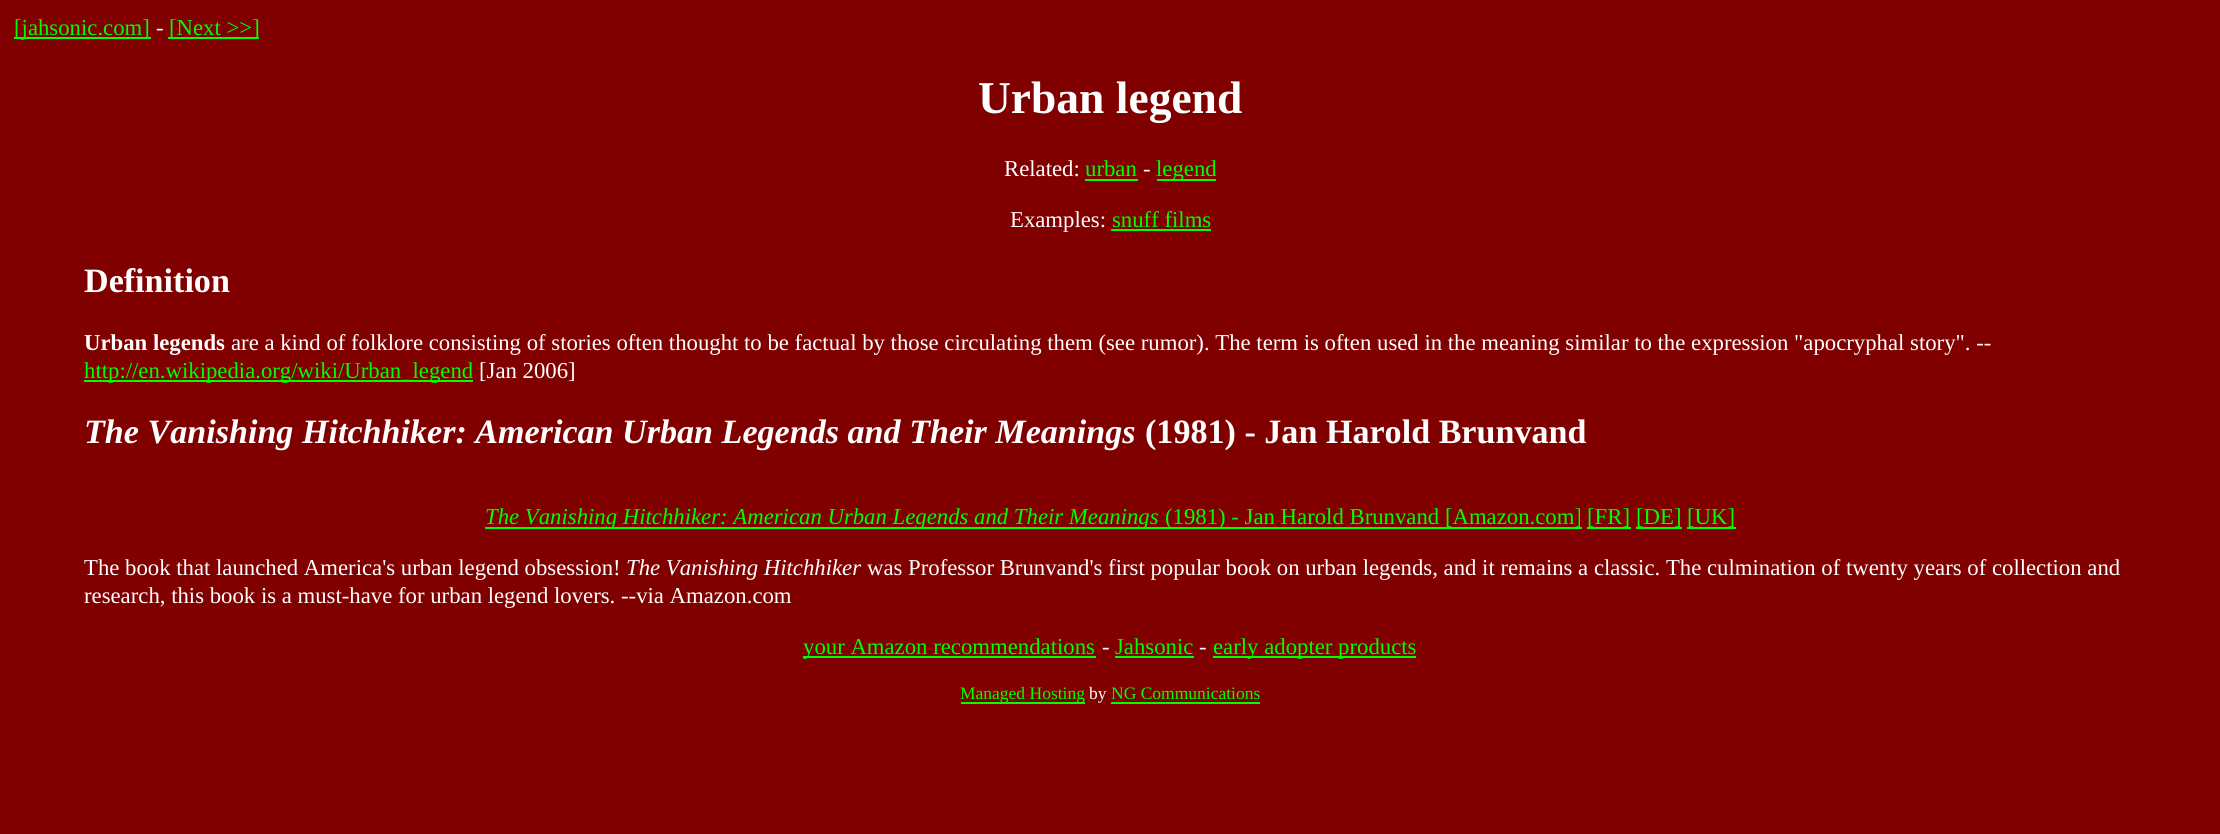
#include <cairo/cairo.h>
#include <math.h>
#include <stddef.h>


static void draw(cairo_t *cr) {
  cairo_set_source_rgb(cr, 128 / 255.0, 0, 0);
  cairo_paint(cr);
  cairo_set_source_rgb(cr, 0, 1, 0);
  cairo_rectangle(cr, 14, 37, 137, 2);
  cairo_fill(cr);
  cairo_rectangle(cr, 168, 37, 91, 2);
  cairo_fill(cr);
  cairo_rectangle(cr, 1085, 179, 53, 2);
  cairo_fill(cr);
  cairo_rectangle(cr, 1157, 179, 59, 2);
  cairo_fill(cr);
  cairo_rectangle(cr, 1111, 229, 100, 2);
  cairo_fill(cr);
  cairo_rectangle(cr, 84, 380, 389, 2);
  cairo_fill(cr);
  cairo_rectangle(cr, 485, 527, 1097, 2);
  cairo_fill(cr);
  cairo_rectangle(cr, 1587, 527, 44, 2);
  cairo_fill(cr);
  cairo_rectangle(cr, 1636, 527, 46, 2);
  cairo_fill(cr);
  cairo_rectangle(cr, 1687, 527, 49, 2);
  cairo_fill(cr);
  cairo_rectangle(cr, 803, 656, 293, 2);
  cairo_fill(cr);
  cairo_rectangle(cr, 1115, 656, 79, 2);
  cairo_fill(cr);
  cairo_rectangle(cr, 1213, 656, 203, 2);
  cairo_fill(cr);
  cairo_rectangle(cr, 961, 702, 124, 2);
  cairo_fill(cr);
  cairo_rectangle(cr, 1111, 702, 149, 2);
  cairo_fill(cr);
  cairo_select_font_face(cr, "Liberation Serif", CAIRO_FONT_SLANT_NORMAL, CAIRO_FONT_WEIGHT_NORMAL);
  cairo_set_font_size(cr, 22.75);
  cairo_move_to(cr, 14, 35);
  cairo_show_text(cr, "[jahsonic.com]");
  cairo_set_source_rgb(cr, 1, 1, 1);
  cairo_move_to(cr, 156, 35);
  cairo_show_text(cr, "-");
  cairo_set_source_rgb(cr, 0, 1, 0);
  cairo_move_to(cr, 169, 35);
  cairo_show_text(cr, "[Next >>]");
  cairo_select_font_face(cr, "Liberation Serif", CAIRO_FONT_SLANT_NORMAL, CAIRO_FONT_WEIGHT_BOLD);
  cairo_set_font_size(cr, 45.5);
  cairo_set_source_rgb(cr, 1, 1, 1);
  cairo_move_to(cr, 978, 113);
  cairo_show_text(cr, "Urban legend");
  cairo_select_font_face(cr, "Liberation Serif", CAIRO_FONT_SLANT_NORMAL, CAIRO_FONT_WEIGHT_NORMAL);
  cairo_set_font_size(cr, 22.75);
  cairo_move_to(cr, 1004, 176);
  cairo_show_text(cr, "Related:");
  cairo_set_source_rgb(cr, 0, 1, 0);
  cairo_move_to(cr, 1085, 176);
  cairo_show_text(cr, "urban");
  cairo_set_source_rgb(cr, 1, 1, 1);
  cairo_move_to(cr, 1143, 176);
  cairo_show_text(cr, "-");
  cairo_set_source_rgb(cr, 0, 1, 0);
  cairo_move_to(cr, 1156, 176);
  cairo_show_text(cr, "legend");
  cairo_set_source_rgb(cr, 1, 1, 1);
  cairo_move_to(cr, 1010, 227);
  cairo_show_text(cr, "Examples:");
  cairo_set_source_rgb(cr, 0, 1, 0);
  cairo_move_to(cr, 1112, 227);
  cairo_show_text(cr, "snuff films");
  cairo_select_font_face(cr, "Liberation Serif", CAIRO_FONT_SLANT_NORMAL, CAIRO_FONT_WEIGHT_BOLD);
  cairo_set_font_size(cr, 34.1);
  cairo_set_source_rgb(cr, 1, 1, 1);
  cairo_move_to(cr, 84, 292);
  cairo_show_text(cr, "Definition");
  cairo_set_font_size(cr, 22.75);
  cairo_move_to(cr, 84, 350);
  cairo_show_text(cr, "Urban legends");
  cairo_select_font_face(cr, "Liberation Serif", CAIRO_FONT_SLANT_NORMAL, CAIRO_FONT_WEIGHT_NORMAL);
  cairo_move_to(cr, 231, 350);
  cairo_show_text(cr, "are a kind of folklore consisting of stories often thought to be factual by those circulating them (see rumor). The term is often used in the meaning similar to the expression \"apocryphal story\". --");
  cairo_set_source_rgb(cr, 0, 1, 0);
  cairo_move_to(cr, 84, 378);
  cairo_show_text(cr, "http://en.wikipedia.org/wiki/Urban_legend");
  cairo_set_source_rgb(cr, 1, 1, 1);
  cairo_move_to(cr, 479, 378);
  cairo_show_text(cr, "[Jan 2006]");
  cairo_select_font_face(cr, "Liberation Serif", CAIRO_FONT_SLANT_ITALIC, CAIRO_FONT_WEIGHT_BOLD);
  cairo_set_font_size(cr, 34.1);
  cairo_move_to(cr, 84, 443);
  cairo_show_text(cr, "The Vanishing Hitchhiker: American Urban Legends and Their Meanings");
  cairo_select_font_face(cr, "Liberation Serif", CAIRO_FONT_SLANT_NORMAL, CAIRO_FONT_WEIGHT_BOLD);
  cairo_move_to(cr, 1145, 443);
  cairo_show_text(cr, "(1981) - Jan Harold Brunvand");
  cairo_select_font_face(cr, "Liberation Serif", CAIRO_FONT_SLANT_ITALIC, CAIRO_FONT_WEIGHT_NORMAL);
  cairo_set_font_size(cr, 22.75);
  cairo_set_source_rgb(cr, 0, 1, 0);
  cairo_move_to(cr, 485, 524);
  cairo_show_text(cr, "The Vanishing Hitchhiker: American Urban Legends and Their Meanings");
  cairo_select_font_face(cr, "Liberation Serif", CAIRO_FONT_SLANT_NORMAL, CAIRO_FONT_WEIGHT_NORMAL);
  cairo_move_to(cr, 1165, 524);
  cairo_show_text(cr, "(1981) - Jan Harold Brunvand [Amazon.com]");
  cairo_move_to(cr, 1587, 524);
  cairo_show_text(cr, "[FR]");
  cairo_move_to(cr, 1636, 524);
  cairo_show_text(cr, "[DE]");
  cairo_move_to(cr, 1687, 524);
  cairo_show_text(cr, "[UK]");
  cairo_set_source_rgb(cr, 1, 1, 1);
  cairo_move_to(cr, 84, 575);
  cairo_show_text(cr, "The book that launched America's urban legend obsession!");
  cairo_select_font_face(cr, "Liberation Serif", CAIRO_FONT_SLANT_ITALIC, CAIRO_FONT_WEIGHT_NORMAL);
  cairo_move_to(cr, 626, 575);
  cairo_show_text(cr, "The Vanishing Hitchhiker");
  cairo_select_font_face(cr, "Liberation Serif", CAIRO_FONT_SLANT_NORMAL, CAIRO_FONT_WEIGHT_NORMAL);
  cairo_move_to(cr, 867, 575);
  cairo_show_text(cr, "was Professor Brunvand's first popular book on urban legends, and it remains a classic. The culmination of twenty years of collection and");
  cairo_move_to(cr, 84, 603);
  cairo_show_text(cr, "research, this book is a must-have for urban legend lovers. --via Amazon.com");
  cairo_set_source_rgb(cr, 0, 1, 0);
  cairo_move_to(cr, 803, 654);
  cairo_show_text(cr, "your Amazon recommendations");
  cairo_set_source_rgb(cr, 1, 1, 1);
  cairo_move_to(cr, 1102, 654);
  cairo_show_text(cr, "-");
  cairo_set_source_rgb(cr, 0, 1, 0);
  cairo_move_to(cr, 1115, 654);
  cairo_show_text(cr, "Jahsonic");
  cairo_set_source_rgb(cr, 1, 1, 1);
  cairo_move_to(cr, 1199, 654);
  cairo_show_text(cr, "-");
  cairo_set_source_rgb(cr, 0, 1, 0);
  cairo_move_to(cr, 1213, 654);
  cairo_show_text(cr, "early adopter products");
  cairo_set_font_size(cr, 17.5);
  cairo_move_to(cr, 960, 699);
  cairo_show_text(cr, "Managed Hosting");
  cairo_set_source_rgb(cr, 1, 1, 1);
  cairo_move_to(cr, 1089, 699);
  cairo_show_text(cr, "by");
  cairo_set_source_rgb(cr, 0, 1, 0);
  cairo_move_to(cr, 1111, 699);
  cairo_show_text(cr, "NG Communications");
}

int main(void) {
  cairo_surface_t *surface = cairo_image_surface_create(CAIRO_FORMAT_RGB24, 2220, 834);
  cairo_t *cr = cairo_create(surface);
  cairo_font_options_t *options = cairo_font_options_create();
  cairo_font_options_set_hint_metrics(options, CAIRO_HINT_METRICS_OFF);
  cairo_font_options_set_hint_style(options, CAIRO_HINT_STYLE_NONE);
  cairo_set_font_options(cr, options);
  cairo_set_miter_limit(cr, 4);
  draw(cr);
  cairo_surface_write_to_png(surface, "out.png");
  cairo_font_options_destroy(options);
  cairo_destroy(cr);
  cairo_surface_destroy(surface);
  return 0;
}
